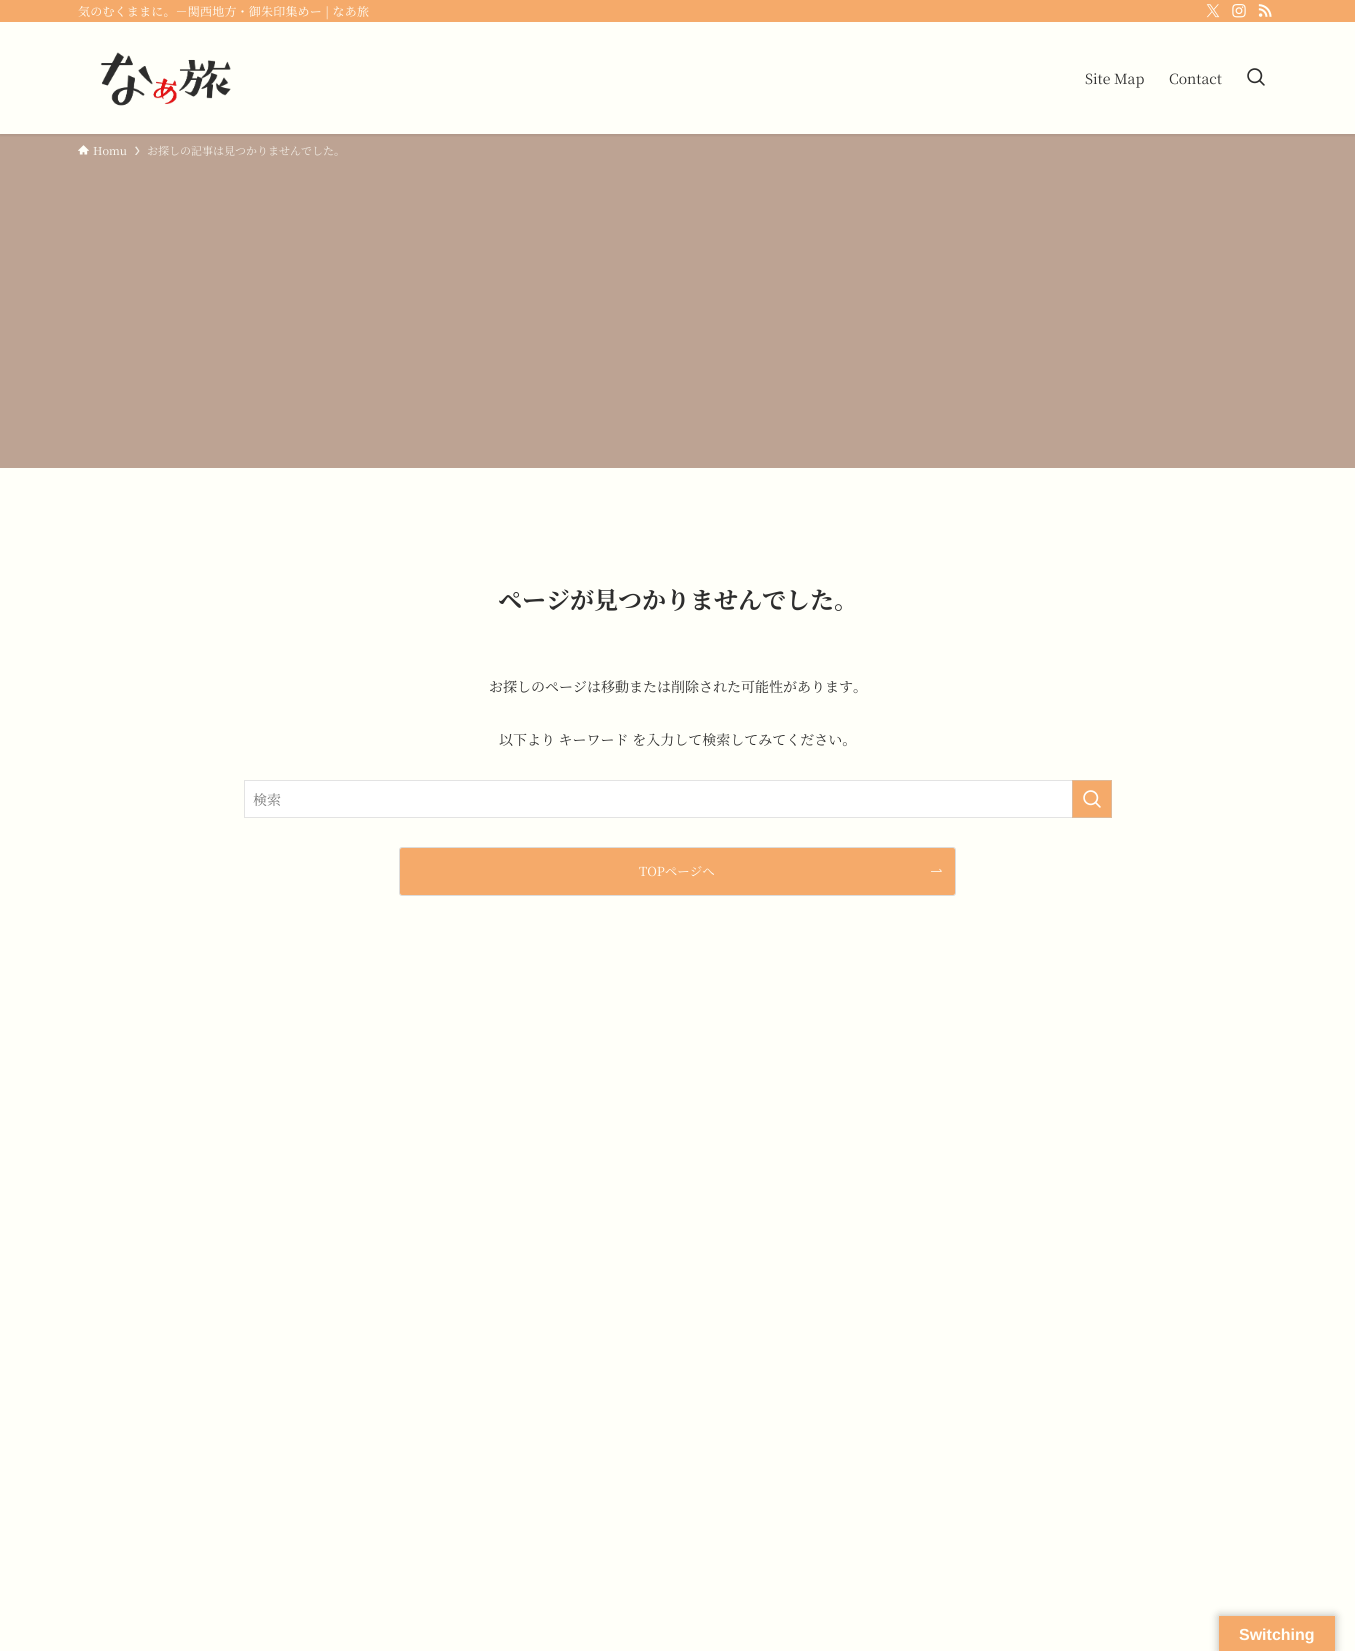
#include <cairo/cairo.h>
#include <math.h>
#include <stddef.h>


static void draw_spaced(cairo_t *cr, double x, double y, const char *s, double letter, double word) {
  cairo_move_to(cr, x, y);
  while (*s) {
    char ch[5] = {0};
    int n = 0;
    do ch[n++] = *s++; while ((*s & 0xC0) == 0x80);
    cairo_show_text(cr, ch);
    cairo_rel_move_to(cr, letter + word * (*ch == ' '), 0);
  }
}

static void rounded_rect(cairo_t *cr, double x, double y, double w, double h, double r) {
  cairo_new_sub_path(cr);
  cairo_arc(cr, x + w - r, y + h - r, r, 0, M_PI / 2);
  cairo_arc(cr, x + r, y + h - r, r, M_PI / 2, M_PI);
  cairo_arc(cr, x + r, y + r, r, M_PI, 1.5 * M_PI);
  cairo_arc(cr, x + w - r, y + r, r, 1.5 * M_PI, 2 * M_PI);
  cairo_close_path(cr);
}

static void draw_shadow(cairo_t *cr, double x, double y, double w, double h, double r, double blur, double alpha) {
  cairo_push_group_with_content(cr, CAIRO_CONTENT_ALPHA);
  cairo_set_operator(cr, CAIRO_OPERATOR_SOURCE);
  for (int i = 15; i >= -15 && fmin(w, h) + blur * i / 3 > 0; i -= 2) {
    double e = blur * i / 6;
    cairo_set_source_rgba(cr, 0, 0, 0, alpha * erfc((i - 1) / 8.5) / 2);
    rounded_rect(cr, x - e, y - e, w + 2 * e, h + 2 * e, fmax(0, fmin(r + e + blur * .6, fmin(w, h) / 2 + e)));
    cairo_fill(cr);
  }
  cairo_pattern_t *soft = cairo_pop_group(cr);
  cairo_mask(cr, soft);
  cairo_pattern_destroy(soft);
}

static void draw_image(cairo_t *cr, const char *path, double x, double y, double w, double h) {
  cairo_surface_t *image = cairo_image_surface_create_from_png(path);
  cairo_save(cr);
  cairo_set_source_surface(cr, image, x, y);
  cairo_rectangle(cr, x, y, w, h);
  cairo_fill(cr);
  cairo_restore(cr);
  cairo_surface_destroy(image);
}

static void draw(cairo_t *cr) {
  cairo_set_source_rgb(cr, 1, 1, 249 / 255.0);
  cairo_paint(cr);
  cairo_set_source_rgb(cr, 189 / 255.0, 163 / 255.0, 147 / 255.0);
  cairo_rectangle(cr, 0, 134, 1355, 334);
  cairo_fill(cr);
  cairo_save(cr);
  cairo_rectangle(cr, 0, 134, 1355, 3);
  cairo_clip(cr);
  cairo_set_source_rgb(cr, 0, 0, 0);
  draw_shadow(cr, 0, 1, 1355, 134, 0, 2, 0.12);
  cairo_restore(cr);
  cairo_set_source_rgb(cr, 245 / 255.0, 170 / 255.0, 106 / 255.0);
  cairo_rectangle(cr, 0, 0, 1355, 22);
  cairo_fill(cr);
  draw_image(cr, "images/1.png", 1206, 4, 14, 14);
  draw_image(cr, "images/2.png", 1232, 4, 14, 14);
  draw_image(cr, "images/3.png", 1258, 4, 14, 13);
  draw_image(cr, "images/4.png", 100, 52, 131, 54);
  draw_image(cr, "images/5.png", 1247, 68, 18, 18);
  draw_image(cr, "images/6.png", 78, 145, 11, 10);
  cairo_set_source_rgb(cr, 242 / 255.0, 237 / 255.0, 229 / 255.0);
  cairo_new_path(cr);
  cairo_move_to(cr, 136.5, 146.5);
  cairo_line_to(cr, 135, 147);
  cairo_line_to(cr, 138, 151);
  cairo_line_to(cr, 135, 155);
  cairo_line_to(cr, 136.5, 155);
  cairo_line_to(cr, 139.5, 151);
  cairo_close_path(cr);
  cairo_fill(cr);
  cairo_set_source_rgb(cr, 1, 1, 1);
  cairo_rectangle(cr, 245, 781, 827, 36);
  cairo_fill(cr);
  cairo_rectangle(cr, 244.5, 780.5, 867, 37);
  cairo_set_source_rgb(cr, 227 / 255.0, 227 / 255.0, 227 / 255.0);
  cairo_set_line_width(cr, 1);
  cairo_stroke(cr);
  cairo_set_source_rgb(cr, 245 / 255.0, 170 / 255.0, 106 / 255.0);
  cairo_rectangle(cr, 1072.5, 780.5, 39, 37);
  cairo_fill_preserve(cr);
  cairo_set_source_rgb(cr, 222 / 255.0, 185 / 255.0, 153 / 255.0);
  cairo_stroke(cr);
  draw_image(cr, "images/7.png", 1083, 790, 18, 18);
  rounded_rect(cr, 399.5, 847.5, 556, 48, 2.5);
  cairo_set_source_rgb(cr, 220 / 255.0, 220 / 255.0, 220 / 255.0);
  cairo_stroke(cr);
  cairo_set_source_rgb(cr, 245 / 255.0, 170 / 255.0, 106 / 255.0);
  rounded_rect(cr, 400, 848, 555, 47, 2);
  cairo_fill(cr);
  draw_image(cr, "images/8.png", 931, 868, 11, 4);
  cairo_set_source_rgb(cr, 0, 0, 0);
  draw_shadow(cr, 1219, 1616, 116, 35, 0, 4.5, 0.3);
  cairo_set_source_rgb(cr, 245 / 255.0, 170 / 255.0, 106 / 255.0);
  cairo_rectangle(cr, 1219, 1616, 116, 35);
  cairo_fill(cr);
  cairo_select_font_face(cr, "Noto Serif JP", CAIRO_FONT_SLANT_NORMAL, CAIRO_FONT_WEIGHT_NORMAL);
  cairo_set_font_size(cr, 12);
  cairo_set_source_rgb(cr, 1, 1, 249 / 255.0);
  draw_spaced(cr, 78, 16, "気のむくままに。－関西地方・御朱印集めー | なあ旅", 0.2, 0);
  cairo_set_font_size(cr, 14);
  cairo_set_source_rgb(cr, 45 / 255.0, 45 / 255.0, 45 / 255.0);
  cairo_move_to(cr, 1085, 84);
  cairo_show_text(cr, "Site Map");
  cairo_move_to(cr, 1169, 84);
  cairo_show_text(cr, "Contact");
  cairo_set_font_size(cr, 11);
  cairo_set_source_rgb(cr, 1, 1, 249 / 255.0);
  cairo_move_to(cr, 93, 155);
  cairo_show_text(cr, "Homu");
  cairo_set_source_rgb(cr, 242 / 255.0, 237 / 255.0, 229 / 255.0);
  cairo_move_to(cr, 147, 155);
  cairo_show_text(cr, "お探しの記事は見つかりませんでした。");
  cairo_select_font_face(cr, "Noto Serif JP", CAIRO_FONT_SLANT_NORMAL, CAIRO_FONT_WEIGHT_BOLD);
  cairo_set_font_size(cr, 24);
  cairo_set_source_rgb(cr, 45 / 255.0, 45 / 255.0, 45 / 255.0);
  cairo_move_to(cr, 498, 609);
  cairo_show_text(cr, "ページが見つかりませんでした。");
  cairo_select_font_face(cr, "Noto Serif JP", CAIRO_FONT_SLANT_NORMAL, CAIRO_FONT_WEIGHT_NORMAL);
  cairo_set_font_size(cr, 14);
  cairo_move_to(cr, 489, 692);
  cairo_show_text(cr, "お探しのページは移動または削除された可能性があります。");
  cairo_move_to(cr, 499, 745);
  cairo_show_text(cr, "以下より キーワード を入力して検索してみてください。");
  cairo_set_source_rgb(cr, 117 / 255.0, 117 / 255.0, 117 / 255.0);
  cairo_move_to(cr, 253, 805);
  cairo_show_text(cr, "検索");
  cairo_set_font_size(cr, 12.5);
  cairo_set_source_rgb(cr, 1, 1, 249 / 255.0);
  cairo_move_to(cr, 639, 876);
  cairo_show_text(cr, "TOPページへ");
  cairo_select_font_face(cr, "Liberation Sans", CAIRO_FONT_SLANT_NORMAL, CAIRO_FONT_WEIGHT_BOLD);
  cairo_set_font_size(cr, 16);
  cairo_move_to(cr, 1239, 1640);
  cairo_show_text(cr, "Switching");
}

int main(void) {
  cairo_surface_t *surface = cairo_image_surface_create(CAIRO_FORMAT_RGB24, 1355, 1651);
  cairo_t *cr = cairo_create(surface);
  cairo_font_options_t *options = cairo_font_options_create();
  cairo_font_options_set_hint_metrics(options, CAIRO_HINT_METRICS_OFF);
  cairo_font_options_set_hint_style(options, CAIRO_HINT_STYLE_NONE);
  cairo_set_font_options(cr, options);
  cairo_set_miter_limit(cr, 4);
  draw(cr);
  cairo_surface_write_to_png(surface, "out.png");
  cairo_font_options_destroy(options);
  cairo_destroy(cr);
  cairo_surface_destroy(surface);
  return 0;
}
